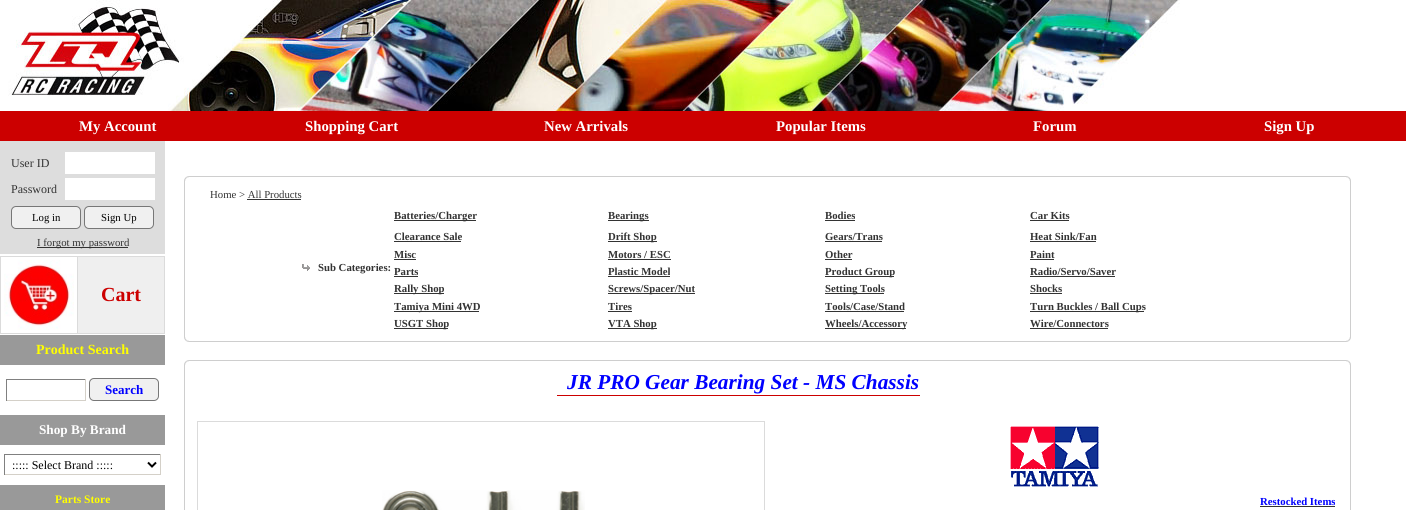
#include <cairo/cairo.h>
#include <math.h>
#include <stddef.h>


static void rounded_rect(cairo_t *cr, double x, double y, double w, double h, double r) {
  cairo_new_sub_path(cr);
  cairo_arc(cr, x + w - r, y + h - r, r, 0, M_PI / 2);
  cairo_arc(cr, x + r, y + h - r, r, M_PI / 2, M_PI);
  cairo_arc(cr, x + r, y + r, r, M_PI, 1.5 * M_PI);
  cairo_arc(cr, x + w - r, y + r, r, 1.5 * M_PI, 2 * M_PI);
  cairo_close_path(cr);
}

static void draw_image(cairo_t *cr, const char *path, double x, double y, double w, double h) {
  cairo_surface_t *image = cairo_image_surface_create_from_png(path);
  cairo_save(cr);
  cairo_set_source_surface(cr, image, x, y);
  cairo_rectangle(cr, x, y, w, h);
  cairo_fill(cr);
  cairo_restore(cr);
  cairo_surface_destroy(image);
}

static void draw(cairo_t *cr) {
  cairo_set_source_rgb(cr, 1, 1, 1);
  cairo_paint(cr);
  draw_image(cr, "images/1.png", 8, 0, 1172, 111);
  cairo_set_source_rgb(cr, 204 / 255.0, 0, 0);
  cairo_rectangle(cr, 0, 111, 1406, 30);
  cairo_fill(cr);
  cairo_set_source_rgb(cr, 221 / 255.0, 221 / 255.0, 221 / 255.0);
  cairo_rectangle(cr, 0, 141, 165, 113);
  cairo_fill(cr);
  cairo_set_source_rgb(cr, 1, 1, 1);
  cairo_rectangle(cr, 65, 152, 90, 22);
  cairo_fill(cr);
  cairo_rectangle(cr, 65, 178, 90, 22);
  cairo_fill(cr);
  cairo_set_source_rgb(cr, 240 / 255.0, 240 / 255.0, 240 / 255.0);
  rounded_rect(cr, 11.5, 206.5, 69, 22, 4.5);
  cairo_fill_preserve(cr);
  cairo_set_source_rgb(cr, 119 / 255.0, 119 / 255.0, 119 / 255.0);
  cairo_set_line_width(cr, 1);
  cairo_stroke(cr);
  cairo_set_source_rgb(cr, 240 / 255.0, 240 / 255.0, 240 / 255.0);
  rounded_rect(cr, 84.5, 206.5, 69, 22, 4.5);
  cairo_fill_preserve(cr);
  cairo_set_source_rgb(cr, 119 / 255.0, 119 / 255.0, 119 / 255.0);
  cairo_stroke(cr);
  cairo_set_source_rgb(cr, 51 / 255.0, 51 / 255.0, 51 / 255.0);
  cairo_rectangle(cr, 37, 247, 91, 1);
  cairo_fill(cr);
  cairo_set_source_rgb(cr, 219 / 255.0, 219 / 255.0, 219 / 255.0);
  cairo_rectangle(cr, 0, 256, 165, 78);
  cairo_fill(cr);
  cairo_set_source_rgb(cr, 1, 1, 1);
  cairo_rectangle(cr, 1, 257, 76, 76);
  cairo_fill(cr);
  draw_image(cr, "images/2.png", 4, 260, 70, 70);
  cairo_set_source_rgb(cr, 239 / 255.0, 239 / 255.0, 239 / 255.0);
  cairo_rectangle(cr, 78, 257, 86, 76);
  cairo_fill(cr);
  cairo_set_source_rgb(cr, 153 / 255.0, 153 / 255.0, 153 / 255.0);
  cairo_rectangle(cr, 0, 335, 165, 30);
  cairo_fill(cr);
  cairo_set_source_rgb(cr, 128 / 255.0, 128 / 255.0, 128 / 255.0);
  cairo_rectangle(cr, 6, 379, 80, 1);
  cairo_fill(cr);
  cairo_set_source_rgb(cr, 212 / 255.0, 208 / 255.0, 200 / 255.0);
  cairo_rectangle(cr, 85, 379, 1, 22);
  cairo_fill(cr);
  cairo_rectangle(cr, 6, 400, 80, 1);
  cairo_fill(cr);
  cairo_set_source_rgb(cr, 128 / 255.0, 128 / 255.0, 128 / 255.0);
  cairo_rectangle(cr, 6, 379, 1, 22);
  cairo_fill(cr);
  cairo_set_source_rgb(cr, 240 / 255.0, 240 / 255.0, 240 / 255.0);
  rounded_rect(cr, 89.5, 378.5, 69, 22, 4.5);
  cairo_fill_preserve(cr);
  cairo_set_source_rgb(cr, 119 / 255.0, 119 / 255.0, 119 / 255.0);
  cairo_stroke(cr);
  cairo_set_source_rgb(cr, 153 / 255.0, 153 / 255.0, 153 / 255.0);
  cairo_rectangle(cr, 0, 415, 165, 30);
  cairo_fill(cr);
  cairo_set_source_rgb(cr, 128 / 255.0, 128 / 255.0, 128 / 255.0);
  cairo_rectangle(cr, 4, 454, 157, 1);
  cairo_fill(cr);
  cairo_set_source_rgb(cr, 212 / 255.0, 208 / 255.0, 200 / 255.0);
  cairo_rectangle(cr, 160, 454, 1, 21);
  cairo_fill(cr);
  cairo_rectangle(cr, 4, 474, 157, 1);
  cairo_fill(cr);
  cairo_set_source_rgb(cr, 128 / 255.0, 128 / 255.0, 128 / 255.0);
  cairo_rectangle(cr, 4, 454, 1, 21);
  cairo_fill(cr);
  cairo_new_path(cr);
  cairo_move_to(cr, 148, 462.5);
  cairo_line_to(cr, 152, 466.5);
  cairo_line_to(cr, 156, 462.5);
  cairo_set_source_rgb(cr, 0, 0, 0);
  cairo_set_line_width(cr, 2);
  cairo_stroke(cr);
  cairo_set_source_rgb(cr, 153 / 255.0, 153 / 255.0, 153 / 255.0);
  cairo_rectangle(cr, 0, 485, 165, 25);
  cairo_fill(cr);
  draw_image(cr, "images/3.png", 184, 176, 10, 10);
  cairo_set_source_rgb(cr, 206 / 255.0, 206 / 255.0, 206 / 255.0);
  cairo_rectangle(cr, 194, 176, 1147, 1);
  cairo_fill(cr);
  draw_image(cr, "images/4.png", 1341, 176, 10, 10);
  cairo_rectangle(cr, 184, 186, 1, 146);
  cairo_fill(cr);
  cairo_set_source_rgb(cr, 51 / 255.0, 51 / 255.0, 51 / 255.0);
  cairo_rectangle(cr, 247, 199, 54, 1);
  cairo_fill(cr);
  draw_image(cr, "images/5.png", 302, 264, 8, 7);
  cairo_rectangle(cr, 394, 220, 82, 1);
  cairo_fill(cr);
  cairo_rectangle(cr, 608, 220, 41, 1);
  cairo_fill(cr);
  cairo_rectangle(cr, 825, 220, 30, 1);
  cairo_fill(cr);
  cairo_rectangle(cr, 1030, 220, 39, 1);
  cairo_fill(cr);
  cairo_rectangle(cr, 394, 241, 67, 1);
  cairo_fill(cr);
  cairo_rectangle(cr, 608, 241, 49, 1);
  cairo_fill(cr);
  cairo_rectangle(cr, 825, 241, 57, 1);
  cairo_fill(cr);
  cairo_rectangle(cr, 1030, 241, 66, 1);
  cairo_fill(cr);
  cairo_rectangle(cr, 394, 259, 22, 1);
  cairo_fill(cr);
  cairo_rectangle(cr, 608, 259, 63, 1);
  cairo_fill(cr);
  cairo_rectangle(cr, 825, 259, 27, 1);
  cairo_fill(cr);
  cairo_rectangle(cr, 1030, 259, 24, 1);
  cairo_fill(cr);
  cairo_rectangle(cr, 394, 276, 24, 1);
  cairo_fill(cr);
  cairo_rectangle(cr, 608, 276, 62, 1);
  cairo_fill(cr);
  cairo_rectangle(cr, 825, 276, 69, 1);
  cairo_fill(cr);
  cairo_rectangle(cr, 1030, 276, 85, 1);
  cairo_fill(cr);
  cairo_rectangle(cr, 394, 293, 50, 1);
  cairo_fill(cr);
  cairo_rectangle(cr, 608, 293, 87, 1);
  cairo_fill(cr);
  cairo_rectangle(cr, 825, 293, 59, 1);
  cairo_fill(cr);
  cairo_rectangle(cr, 1030, 293, 32, 1);
  cairo_fill(cr);
  cairo_rectangle(cr, 394, 311, 85, 1);
  cairo_fill(cr);
  cairo_rectangle(cr, 608, 311, 24, 1);
  cairo_fill(cr);
  cairo_rectangle(cr, 825, 311, 79, 1);
  cairo_fill(cr);
  cairo_rectangle(cr, 1030, 311, 114, 1);
  cairo_fill(cr);
  cairo_rectangle(cr, 394, 328, 54, 1);
  cairo_fill(cr);
  cairo_rectangle(cr, 608, 328, 49, 1);
  cairo_fill(cr);
  cairo_rectangle(cr, 825, 328, 81, 1);
  cairo_fill(cr);
  cairo_rectangle(cr, 1030, 328, 78, 1);
  cairo_fill(cr);
  cairo_set_source_rgb(cr, 206 / 255.0, 206 / 255.0, 206 / 255.0);
  cairo_rectangle(cr, 1350, 186, 1, 146);
  cairo_fill(cr);
  draw_image(cr, "images/6.png", 184, 332, 10, 10);
  cairo_rectangle(cr, 194, 341, 1147, 1);
  cairo_fill(cr);
  draw_image(cr, "images/7.png", 1341, 332, 10, 10);
  draw_image(cr, "images/3.png", 184, 360, 10, 10);
  cairo_rectangle(cr, 194, 360, 1147, 1);
  cairo_fill(cr);
  draw_image(cr, "images/4.png", 1341, 360, 10, 10);
  cairo_rectangle(cr, 184, 370, 1, 140);
  cairo_fill(cr);
  cairo_set_source_rgb(cr, 204 / 255.0, 0, 0);
  cairo_rectangle(cr, 557, 395, 363, 1);
  cairo_fill(cr);
  cairo_set_source_rgb(cr, 219 / 255.0, 219 / 255.0, 219 / 255.0);
  cairo_rectangle(cr, 197, 421, 568, 89);
  cairo_fill(cr);
  cairo_set_source_rgb(cr, 1, 1, 1);
  cairo_rectangle(cr, 198, 422, 566, 88);
  cairo_fill(cr);
  draw_image(cr, "images/8.png", 382, 490, 203, 20);
  draw_image(cr, "images/9.png", 1010, 426, 89, 61);
  cairo_set_source_rgb(cr, 51 / 255.0, 51 / 255.0, 51 / 255.0);
  cairo_rectangle(cr, 1260, 506, 75, 1);
  cairo_fill(cr);
  cairo_set_source_rgb(cr, 206 / 255.0, 206 / 255.0, 206 / 255.0);
  cairo_rectangle(cr, 1350, 370, 1, 140);
  cairo_fill(cr);
  cairo_select_font_face(cr, "Liberation Serif", CAIRO_FONT_SLANT_NORMAL, CAIRO_FONT_WEIGHT_BOLD);
  cairo_set_font_size(cr, 14.75);
  cairo_set_source_rgb(cr, 1, 1, 1);
  cairo_move_to(cr, 79, 131);
  cairo_show_text(cr, "My Account");
  cairo_move_to(cr, 305, 131);
  cairo_show_text(cr, "Shopping Cart");
  cairo_move_to(cr, 544, 131);
  cairo_show_text(cr, "New Arrivals");
  cairo_move_to(cr, 776, 131);
  cairo_show_text(cr, "Popular Items");
  cairo_move_to(cr, 1033, 131);
  cairo_show_text(cr, "Forum");
  cairo_move_to(cr, 1264, 131);
  cairo_show_text(cr, "Sign Up");
  cairo_select_font_face(cr, "Liberation Serif", CAIRO_FONT_SLANT_NORMAL, CAIRO_FONT_WEIGHT_NORMAL);
  cairo_set_font_size(cr, 12);
  cairo_set_source_rgb(cr, 51 / 255.0, 51 / 255.0, 51 / 255.0);
  cairo_move_to(cr, 11, 167);
  cairo_show_text(cr, "User ID");
  cairo_move_to(cr, 11, 193);
  cairo_show_text(cr, "Password");
  cairo_set_font_size(cr, 10.75);
  cairo_set_source_rgb(cr, 0, 0, 0);
  cairo_move_to(cr, 32, 221);
  cairo_show_text(cr, "Log in");
  cairo_move_to(cr, 101, 221);
  cairo_show_text(cr, "Sign Up");
  cairo_set_source_rgb(cr, 51 / 255.0, 51 / 255.0, 51 / 255.0);
  cairo_move_to(cr, 37, 246);
  cairo_show_text(cr, "I forgot my password");
  cairo_select_font_face(cr, "Liberation Serif", CAIRO_FONT_SLANT_NORMAL, CAIRO_FONT_WEIGHT_BOLD);
  cairo_set_font_size(cr, 20);
  cairo_set_source_rgb(cr, 204 / 255.0, 0, 0);
  cairo_move_to(cr, 101, 301);
  cairo_show_text(cr, "Cart");
  cairo_set_font_size(cr, 14);
  cairo_set_source_rgb(cr, 1, 1, 0);
  cairo_move_to(cr, 36, 354);
  cairo_show_text(cr, "Product Search");
  cairo_set_font_size(cr, 13);
  cairo_set_source_rgb(cr, 0, 0, 1);
  cairo_move_to(cr, 105, 394);
  cairo_show_text(cr, "Search");
  cairo_set_font_size(cr, 13.25);
  cairo_set_source_rgb(cr, 1, 1, 1);
  cairo_move_to(cr, 39, 434);
  cairo_show_text(cr, "Shop By Brand");
  cairo_select_font_face(cr, "Liberation Serif", CAIRO_FONT_SLANT_NORMAL, CAIRO_FONT_WEIGHT_NORMAL);
  cairo_set_font_size(cr, 12);
  cairo_set_source_rgb(cr, 0, 0, 0);
  cairo_move_to(cr, 12, 469);
  cairo_show_text(cr, "::::: Select Brand :::::");
  cairo_select_font_face(cr, "Liberation Serif", CAIRO_FONT_SLANT_NORMAL, CAIRO_FONT_WEIGHT_BOLD);
  cairo_set_font_size(cr, 11.5);
  cairo_set_source_rgb(cr, 1, 1, 0);
  cairo_move_to(cr, 55, 503);
  cairo_show_text(cr, "Parts Store");
  cairo_select_font_face(cr, "Liberation Serif", CAIRO_FONT_SLANT_NORMAL, CAIRO_FONT_WEIGHT_NORMAL);
  cairo_set_font_size(cr, 10.75);
  cairo_set_source_rgb(cr, 51 / 255.0, 51 / 255.0, 51 / 255.0);
  cairo_move_to(cr, 210, 198);
  cairo_show_text(cr, "Home > All Products");
  cairo_select_font_face(cr, "Liberation Serif", CAIRO_FONT_SLANT_NORMAL, CAIRO_FONT_WEIGHT_BOLD);
  cairo_move_to(cr, 318, 271);
  cairo_show_text(cr, "Sub Categories:");
  cairo_move_to(cr, 394, 219);
  cairo_show_text(cr, "Batteries/Charger");
  cairo_move_to(cr, 608, 219);
  cairo_show_text(cr, "Bearings");
  cairo_move_to(cr, 825, 219);
  cairo_show_text(cr, "Bodies");
  cairo_move_to(cr, 1030, 219);
  cairo_show_text(cr, "Car Kits");
  cairo_move_to(cr, 394, 240);
  cairo_show_text(cr, "Clearance Sale");
  cairo_move_to(cr, 608, 240);
  cairo_show_text(cr, "Drift Shop");
  cairo_move_to(cr, 825, 240);
  cairo_show_text(cr, "Gears/Trans");
  cairo_move_to(cr, 1030, 240);
  cairo_show_text(cr, "Heat Sink/Fan");
  cairo_move_to(cr, 394, 258);
  cairo_show_text(cr, "Misc");
  cairo_move_to(cr, 608, 258);
  cairo_show_text(cr, "Motors / ESC");
  cairo_move_to(cr, 825, 258);
  cairo_show_text(cr, "Other");
  cairo_move_to(cr, 1030, 258);
  cairo_show_text(cr, "Paint");
  cairo_move_to(cr, 394, 275);
  cairo_show_text(cr, "Parts");
  cairo_move_to(cr, 608, 275);
  cairo_show_text(cr, "Plastic Model");
  cairo_move_to(cr, 825, 275);
  cairo_show_text(cr, "Product Group");
  cairo_move_to(cr, 1030, 275);
  cairo_show_text(cr, "Radio/Servo/Saver");
  cairo_move_to(cr, 394, 292);
  cairo_show_text(cr, "Rally Shop");
  cairo_move_to(cr, 608, 292);
  cairo_show_text(cr, "Screws/Spacer/Nut");
  cairo_move_to(cr, 825, 292);
  cairo_show_text(cr, "Setting Tools");
  cairo_move_to(cr, 1030, 292);
  cairo_show_text(cr, "Shocks");
  cairo_move_to(cr, 394, 310);
  cairo_show_text(cr, "Tamiya Mini 4WD");
  cairo_move_to(cr, 608, 310);
  cairo_show_text(cr, "Tires");
  cairo_move_to(cr, 825, 310);
  cairo_show_text(cr, "Tools/Case/Stand");
  cairo_move_to(cr, 1030, 310);
  cairo_show_text(cr, "Turn Buckles / Ball Cups");
  cairo_move_to(cr, 394, 327);
  cairo_show_text(cr, "USGT Shop");
  cairo_move_to(cr, 608, 327);
  cairo_show_text(cr, "VTA Shop");
  cairo_move_to(cr, 825, 327);
  cairo_show_text(cr, "Wheels/Accessory");
  cairo_move_to(cr, 1030, 327);
  cairo_show_text(cr, "Wire/Connectors");
  cairo_select_font_face(cr, "Liberation Serif", CAIRO_FONT_SLANT_ITALIC, CAIRO_FONT_WEIGHT_BOLD);
  cairo_set_font_size(cr, 21.3);
  cairo_set_source_rgb(cr, 0, 0, 1);
  cairo_move_to(cr, 567, 389);
  cairo_show_text(cr, "JR PRO Gear Bearing Set - MS Chassis");
  cairo_select_font_face(cr, "Liberation Serif", CAIRO_FONT_SLANT_NORMAL, CAIRO_FONT_WEIGHT_BOLD);
  cairo_set_font_size(cr, 10.75);
  cairo_move_to(cr, 1260, 505);
  cairo_show_text(cr, "Restocked Items");
}

int main(void) {
  cairo_surface_t *surface = cairo_image_surface_create(CAIRO_FORMAT_RGB24, 1406, 510);
  cairo_t *cr = cairo_create(surface);
  cairo_font_options_t *options = cairo_font_options_create();
  cairo_font_options_set_hint_metrics(options, CAIRO_HINT_METRICS_OFF);
  cairo_font_options_set_hint_style(options, CAIRO_HINT_STYLE_NONE);
  cairo_set_font_options(cr, options);
  cairo_set_miter_limit(cr, 4);
  draw(cr);
  cairo_surface_write_to_png(surface, "out.png");
  cairo_font_options_destroy(options);
  cairo_destroy(cr);
  cairo_surface_destroy(surface);
  return 0;
}
